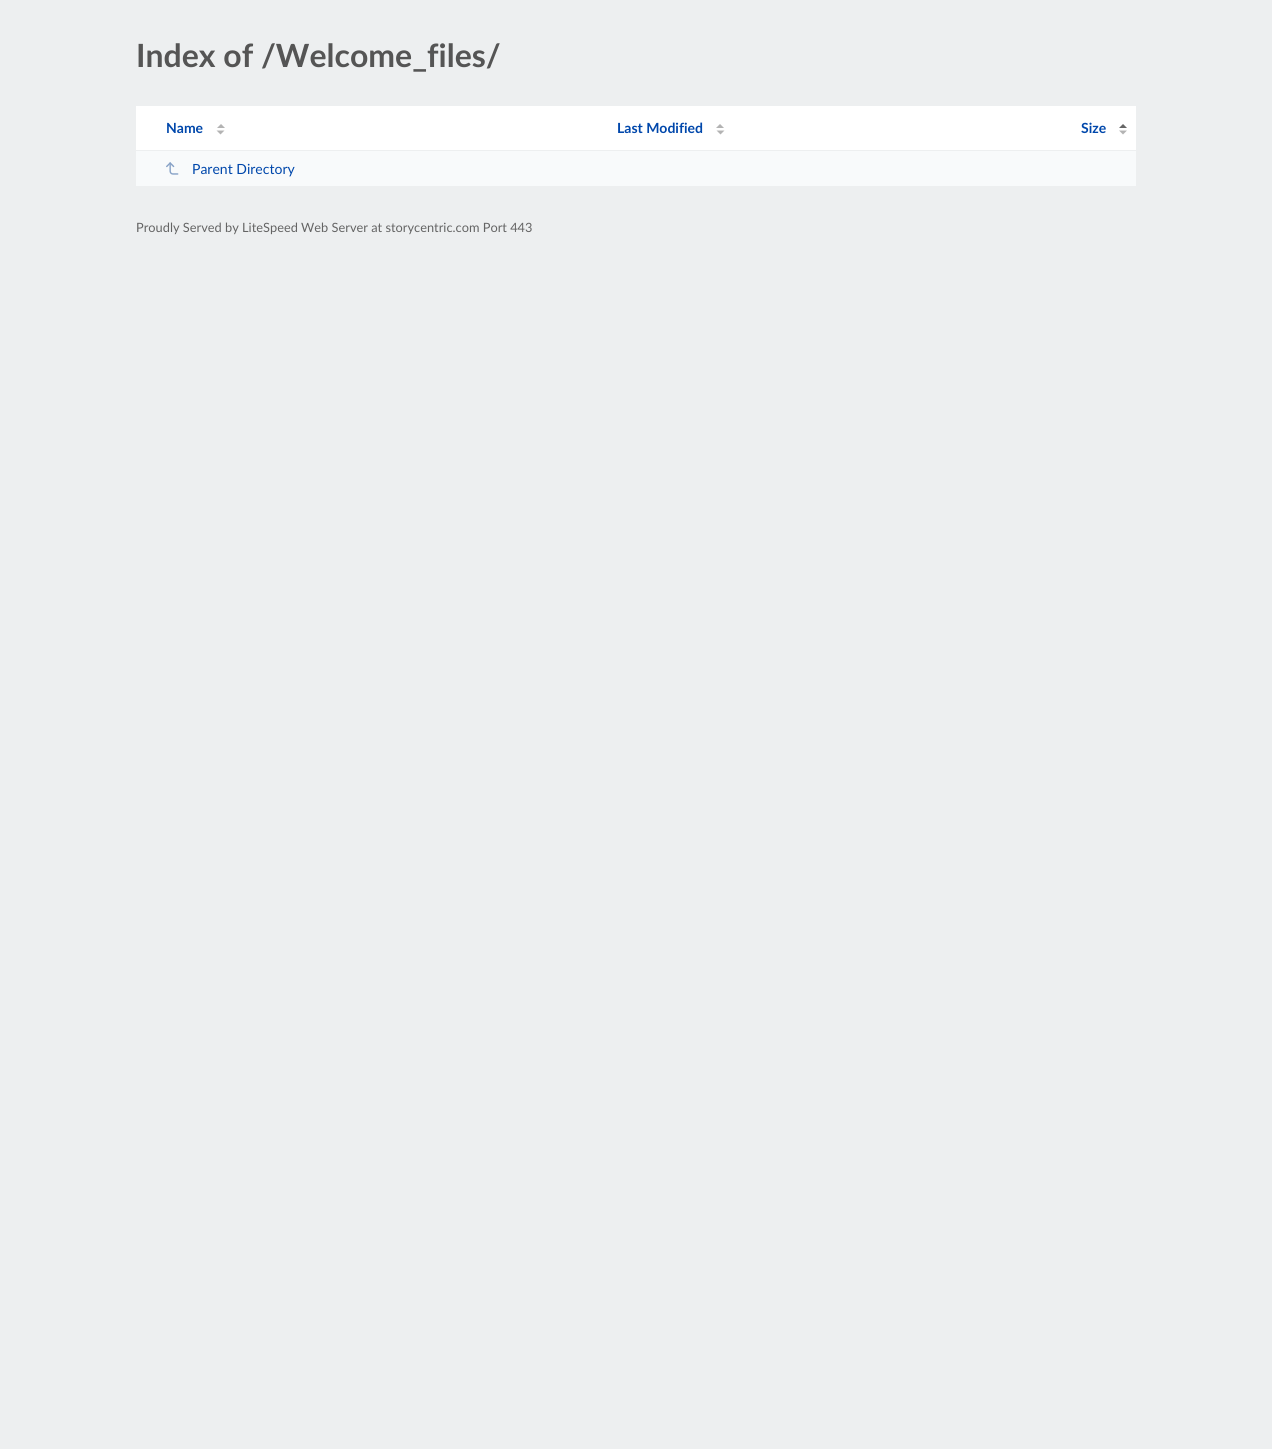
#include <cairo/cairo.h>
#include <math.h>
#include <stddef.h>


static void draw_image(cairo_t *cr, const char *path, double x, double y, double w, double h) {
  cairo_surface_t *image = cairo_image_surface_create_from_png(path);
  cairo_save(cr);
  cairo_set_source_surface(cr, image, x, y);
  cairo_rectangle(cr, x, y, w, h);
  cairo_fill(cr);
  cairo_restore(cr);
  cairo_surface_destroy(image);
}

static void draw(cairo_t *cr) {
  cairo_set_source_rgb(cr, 237 / 255.0, 239 / 255.0, 240 / 255.0);
  cairo_paint(cr);
  cairo_set_source_rgb(cr, 1, 1, 1);
  cairo_rectangle(cr, 136, 106, 1000, 44);
  cairo_fill(cr);
  cairo_set_source_rgb(cr, 179 / 255.0, 179 / 255.0, 179 / 255.0);
  cairo_new_path(cr);
  cairo_move_to(cr, 225, 128);
  cairo_line_to(cr, 217, 128);
  cairo_line_to(cr, 221, 124);
  cairo_close_path(cr);
  cairo_move_to(cr, 216.5, 130.5);
  cairo_line_to(cr, 224.5, 130.5);
  cairo_line_to(cr, 220.5, 134.5);
  cairo_close_path(cr);
  cairo_fill(cr);
  cairo_new_path(cr);
  cairo_move_to(cr, 724, 128);
  cairo_line_to(cr, 716, 128);
  cairo_line_to(cr, 720, 124);
  cairo_close_path(cr);
  cairo_move_to(cr, 716.5, 130.5);
  cairo_line_to(cr, 724.5, 130.5);
  cairo_line_to(cr, 720.5, 134.5);
  cairo_close_path(cr);
  cairo_fill(cr);
  cairo_set_source_rgb(cr, 102 / 255.0, 102 / 255.0, 102 / 255.0);
  cairo_new_path(cr);
  cairo_move_to(cr, 1127, 128);
  cairo_line_to(cr, 1119, 128);
  cairo_line_to(cr, 1123, 124);
  cairo_close_path(cr);
  cairo_fill(cr);
  cairo_set_source_rgb(cr, 179 / 255.0, 179 / 255.0, 179 / 255.0);
  cairo_new_path(cr);
  cairo_move_to(cr, 1119, 130.5);
  cairo_line_to(cr, 1127, 130.5);
  cairo_line_to(cr, 1123, 134.5);
  cairo_close_path(cr);
  cairo_fill(cr);
  cairo_set_source_rgb(cr, 248 / 255.0, 250 / 255.0, 251 / 255.0);
  cairo_rectangle(cr, 136, 151, 1000, 35);
  cairo_fill(cr);
  draw_image(cr, "images/1.png", 166, 162, 13, 13);
  cairo_select_font_face(cr, "Lato", CAIRO_FONT_SLANT_NORMAL, CAIRO_FONT_WEIGHT_BOLD);
  cairo_set_font_size(cr, 32);
  cairo_set_source_rgb(cr, 85 / 255.0, 85 / 255.0, 85 / 255.0);
  cairo_move_to(cr, 136, 67);
  cairo_show_text(cr, "Index of /Welcome_files/");
  cairo_set_font_size(cr, 14);
  cairo_set_source_rgb(cr, 0, 71 / 255.0, 171 / 255.0);
  cairo_move_to(cr, 166, 133);
  cairo_show_text(cr, "Name");
  cairo_move_to(cr, 617, 133);
  cairo_show_text(cr, "Last Modified");
  cairo_move_to(cr, 1081, 133);
  cairo_show_text(cr, "Size");
  cairo_select_font_face(cr, "Lato", CAIRO_FONT_SLANT_NORMAL, CAIRO_FONT_WEIGHT_NORMAL);
  cairo_move_to(cr, 192, 174);
  cairo_show_text(cr, "Parent Directory");
  cairo_set_font_size(cr, 12.8);
  cairo_set_source_rgb(cr, 100 / 255.0, 100 / 255.0, 100 / 255.0);
  cairo_move_to(cr, 136, 232);
  cairo_show_text(cr, "Proudly Served by LiteSpeed Web Server at storycentric.com Port 443");
}

int main(void) {
  cairo_surface_t *surface = cairo_image_surface_create(CAIRO_FORMAT_RGB24, 1272, 1449);
  cairo_t *cr = cairo_create(surface);
  cairo_font_options_t *options = cairo_font_options_create();
  cairo_font_options_set_hint_metrics(options, CAIRO_HINT_METRICS_OFF);
  cairo_font_options_set_hint_style(options, CAIRO_HINT_STYLE_NONE);
  cairo_set_font_options(cr, options);
  cairo_set_miter_limit(cr, 4);
  draw(cr);
  cairo_surface_write_to_png(surface, "out.png");
  cairo_font_options_destroy(options);
  cairo_destroy(cr);
  cairo_surface_destroy(surface);
  return 0;
}
